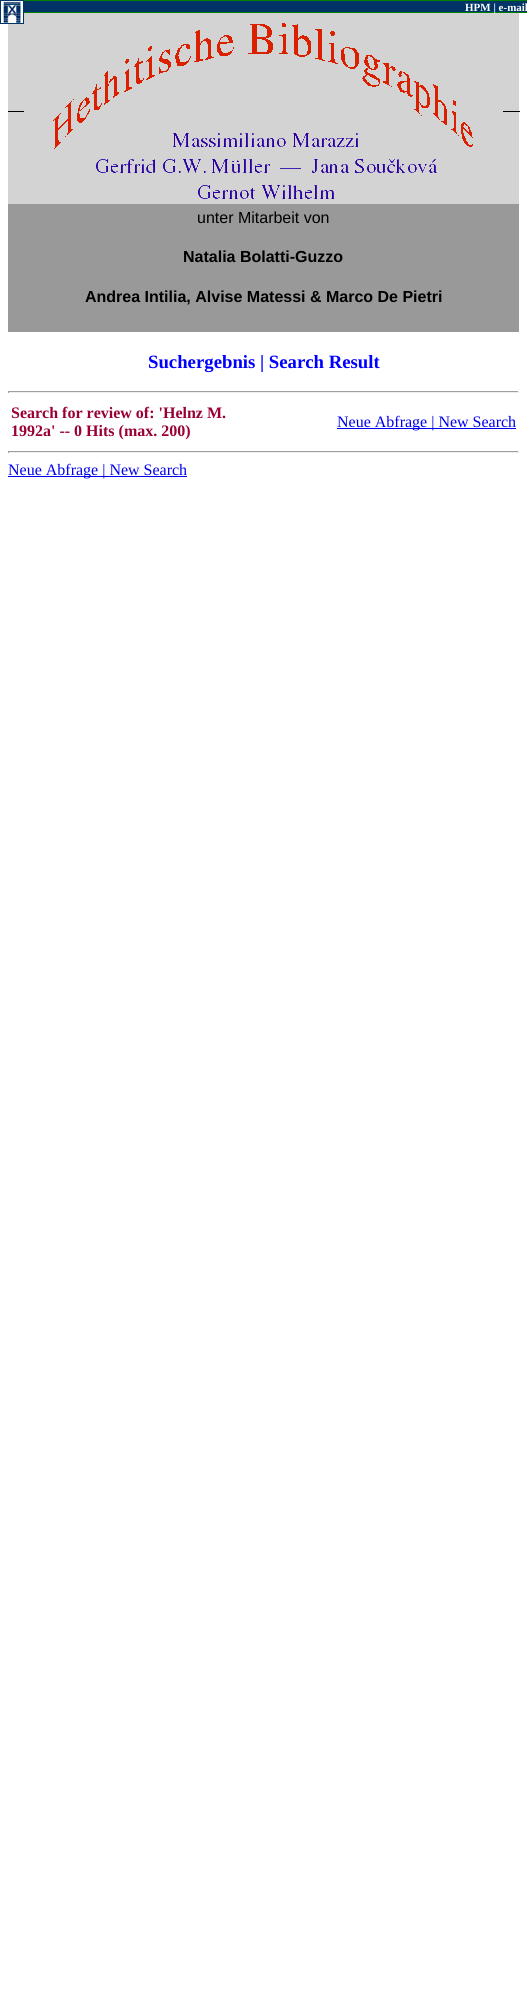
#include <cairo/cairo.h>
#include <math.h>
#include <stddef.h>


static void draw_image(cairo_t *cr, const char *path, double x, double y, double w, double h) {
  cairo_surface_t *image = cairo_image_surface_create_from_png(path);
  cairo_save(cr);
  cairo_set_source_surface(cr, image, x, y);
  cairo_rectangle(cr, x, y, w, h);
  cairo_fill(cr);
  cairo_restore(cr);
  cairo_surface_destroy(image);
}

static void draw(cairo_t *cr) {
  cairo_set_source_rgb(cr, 1, 1, 1);
  cairo_paint(cr);
  cairo_set_source_rgb(cr, 211 / 255.0, 211 / 255.0, 211 / 255.0);
  cairo_rectangle(cr, 24, 13, 495, 5);
  cairo_fill(cr);
  cairo_set_source_rgb(cr, 0, 51 / 255.0, 102 / 255.0);
  cairo_rectangle(cr, 24, 1, 503, 11);
  cairo_fill(cr);
  cairo_rectangle(cr, 0.5, 0.5, 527, 12);
  cairo_set_source_rgb(cr, 0, 128 / 255.0, 0);
  cairo_set_line_width(cr, 1);
  cairo_stroke(cr);
  cairo_set_source_rgb(cr, 211 / 255.0, 211 / 255.0, 211 / 255.0);
  cairo_rectangle(cr, 8, 18, 511, 186);
  cairo_fill(cr);
  cairo_set_source_rgb(cr, 1, 1, 1);
  cairo_rectangle(cr, 1, 12, 22, 11);
  cairo_fill(cr);
  cairo_rectangle(cr, 0.5, 0.5, 23, 23);
  cairo_set_source_rgb(cr, 0, 51 / 255.0, 102 / 255.0);
  cairo_stroke(cr);
  draw_image(cr, "images/1.png", 3, 1, 18, 22);
  draw_image(cr, "images/2.png", 53, 23, 420, 176);
  cairo_set_source_rgb(cr, 0, 0, 0);
  cairo_rectangle(cr, 8, 111, 16, 1);
  cairo_fill(cr);
  cairo_rectangle(cr, 503, 111, 17, 1);
  cairo_fill(cr);
  cairo_set_source_rgb(cr, 153 / 255.0, 153 / 255.0, 153 / 255.0);
  cairo_rectangle(cr, 8, 204, 511, 128);
  cairo_fill(cr);
  cairo_set_source_rgb(cr, 159 / 255.0, 159 / 255.0, 159 / 255.0);
  cairo_rectangle(cr, 8, 391, 511, 1);
  cairo_fill(cr);
  cairo_set_source_rgb(cr, 238 / 255.0, 238 / 255.0, 238 / 255.0);
  cairo_rectangle(cr, 518, 391, 1, 2);
  cairo_fill(cr);
  cairo_rectangle(cr, 8, 392, 511, 1);
  cairo_fill(cr);
  cairo_set_source_rgb(cr, 159 / 255.0, 159 / 255.0, 159 / 255.0);
  cairo_rectangle(cr, 8, 391, 1, 2);
  cairo_fill(cr);
  cairo_set_source_rgb(cr, 0, 0, 238 / 255.0);
  cairo_rectangle(cr, 337, 428, 179, 1);
  cairo_fill(cr);
  cairo_set_source_rgb(cr, 159 / 255.0, 159 / 255.0, 159 / 255.0);
  cairo_rectangle(cr, 8, 451, 511, 1);
  cairo_fill(cr);
  cairo_set_source_rgb(cr, 238 / 255.0, 238 / 255.0, 238 / 255.0);
  cairo_rectangle(cr, 518, 451, 1, 2);
  cairo_fill(cr);
  cairo_rectangle(cr, 8, 452, 511, 1);
  cairo_fill(cr);
  cairo_set_source_rgb(cr, 159 / 255.0, 159 / 255.0, 159 / 255.0);
  cairo_rectangle(cr, 8, 451, 1, 2);
  cairo_fill(cr);
  cairo_set_source_rgb(cr, 0, 0, 238 / 255.0);
  cairo_rectangle(cr, 8, 476, 179, 1);
  cairo_fill(cr);
  cairo_select_font_face(cr, "Liberation Serif", CAIRO_FONT_SLANT_NORMAL, CAIRO_FONT_WEIGHT_BOLD);
  cairo_set_font_size(cr, 11);
  cairo_set_source_rgb(cr, 1, 1, 1);
  cairo_move_to(cr, 465, 11);
  cairo_show_text(cr, "HPM | e-mail");
  cairo_select_font_face(cr, "Liberation Sans", CAIRO_FONT_SLANT_NORMAL, CAIRO_FONT_WEIGHT_NORMAL);
  cairo_set_font_size(cr, 16);
  cairo_set_source_rgb(cr, 0, 0, 0);
  cairo_move_to(cr, 197, 223);
  cairo_show_text(cr, "unter Mitarbeit von");
  cairo_select_font_face(cr, "Liberation Sans", CAIRO_FONT_SLANT_NORMAL, CAIRO_FONT_WEIGHT_BOLD);
  cairo_move_to(cr, 183, 262);
  cairo_show_text(cr, "Natalia Bolatti-Guzzo");
  cairo_move_to(cr, 85, 302);
  cairo_show_text(cr, "Andrea Intilia, Alvise Matessi & Marco De Pietri");
  cairo_select_font_face(cr, "Liberation Serif", CAIRO_FONT_SLANT_NORMAL, CAIRO_FONT_WEIGHT_BOLD);
  cairo_set_font_size(cr, 18.75);
  cairo_set_source_rgb(cr, 0, 0, 1);
  cairo_move_to(cr, 148, 368);
  cairo_show_text(cr, "Suchergebnis | Search Result");
  cairo_set_font_size(cr, 16);
  cairo_set_source_rgb(cr, 153 / 255.0, 0, 51 / 255.0);
  cairo_move_to(cr, 11, 418);
  cairo_show_text(cr, "Search for review of: 'Helnz M.");
  cairo_move_to(cr, 11, 436);
  cairo_show_text(cr, "1992a' -- 0 Hits (max. 200)");
  cairo_select_font_face(cr, "Liberation Serif", CAIRO_FONT_SLANT_NORMAL, CAIRO_FONT_WEIGHT_NORMAL);
  cairo_set_source_rgb(cr, 0, 0, 238 / 255.0);
  cairo_move_to(cr, 337, 427);
  cairo_show_text(cr, "Neue Abfrage | New Search");
  cairo_move_to(cr, 8, 475);
  cairo_show_text(cr, "Neue Abfrage | New Search");
}

int main(void) {
  cairo_surface_t *surface = cairo_image_surface_create(CAIRO_FORMAT_RGB24, 527, 2007);
  cairo_t *cr = cairo_create(surface);
  cairo_font_options_t *options = cairo_font_options_create();
  cairo_font_options_set_hint_metrics(options, CAIRO_HINT_METRICS_OFF);
  cairo_font_options_set_hint_style(options, CAIRO_HINT_STYLE_NONE);
  cairo_set_font_options(cr, options);
  cairo_set_miter_limit(cr, 4);
  draw(cr);
  cairo_surface_write_to_png(surface, "out.png");
  cairo_font_options_destroy(options);
  cairo_destroy(cr);
  cairo_surface_destroy(surface);
  return 0;
}
